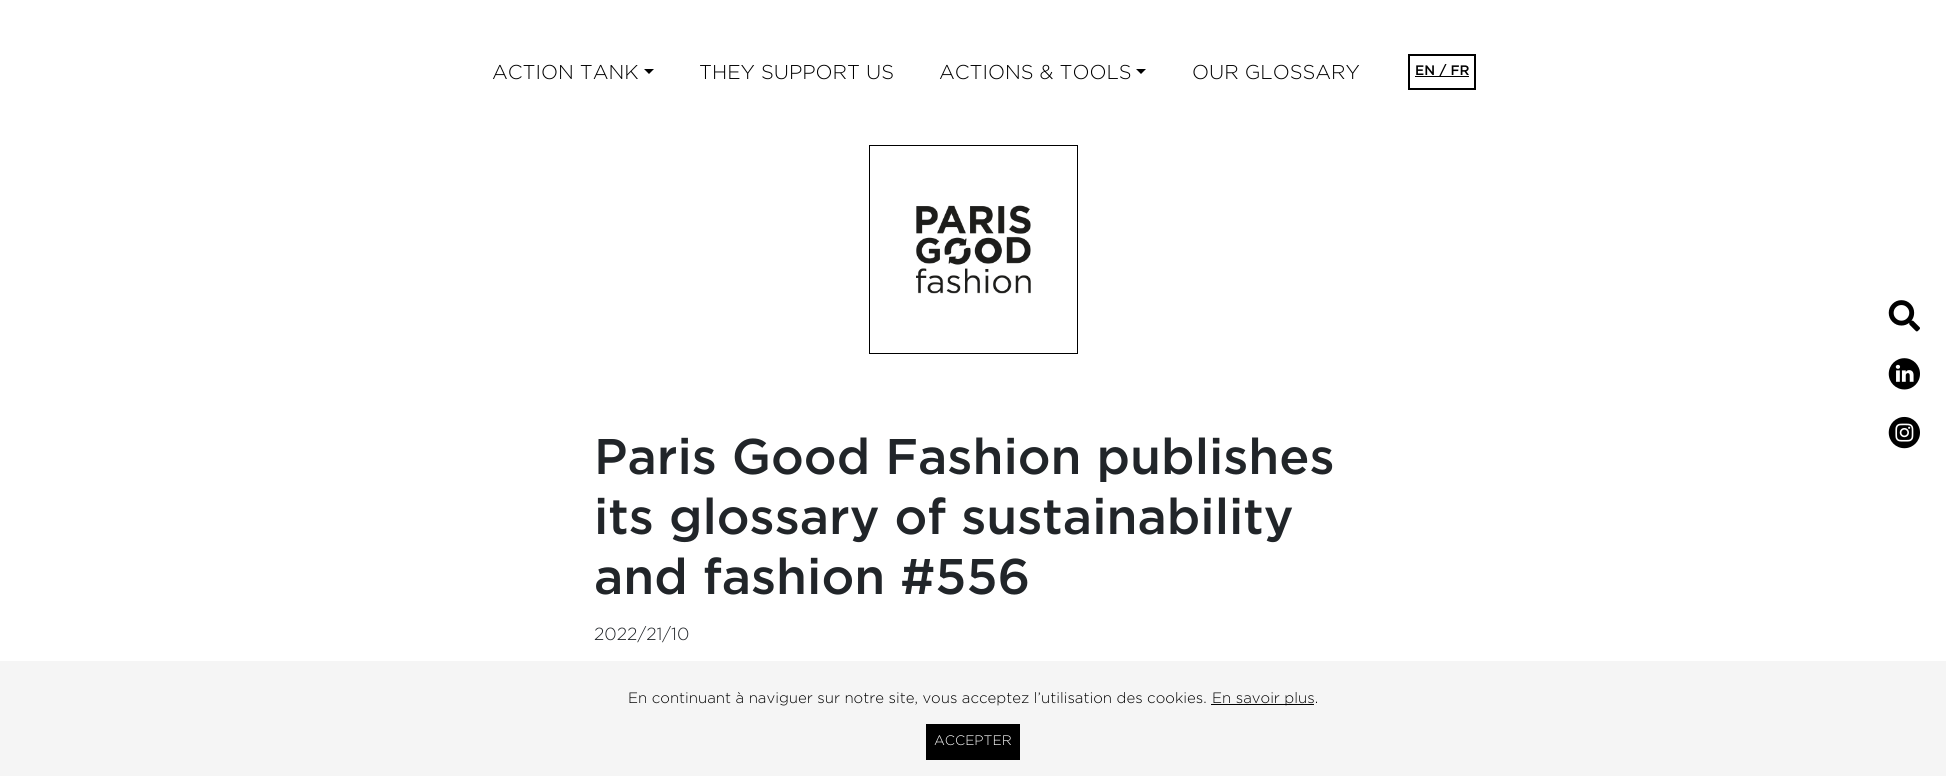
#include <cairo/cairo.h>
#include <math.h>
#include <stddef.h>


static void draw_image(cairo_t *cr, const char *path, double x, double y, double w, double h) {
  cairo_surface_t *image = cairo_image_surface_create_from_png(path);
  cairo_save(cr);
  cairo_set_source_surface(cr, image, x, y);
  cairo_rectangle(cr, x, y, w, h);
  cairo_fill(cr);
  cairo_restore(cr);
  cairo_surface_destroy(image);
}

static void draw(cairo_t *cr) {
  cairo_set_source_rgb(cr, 1, 1, 1);
  cairo_paint(cr);
  cairo_set_source_rgb(cr, 0, 0, 0);
  cairo_new_path(cr);
  cairo_move_to(cr, 644, 69);
  cairo_line_to(cr, 654, 69);
  cairo_line_to(cr, 649, 74);
  cairo_close_path(cr);
  cairo_fill(cr);
  cairo_new_path(cr);
  cairo_move_to(cr, 1136, 69);
  cairo_line_to(cr, 1146, 69);
  cairo_line_to(cr, 1141, 74);
  cairo_close_path(cr);
  cairo_fill(cr);
  cairo_rectangle(cr, 1408.5, 54.5, 67, 35);
  cairo_set_line_width(cr, 1);
  cairo_stroke(cr);
  cairo_rectangle(cr, 1415, 76, 54, 1);
  cairo_fill(cr);
  cairo_rectangle(cr, 1409.5, 55.5, 65, 33);
  cairo_stroke(cr);
  cairo_rectangle(cr, 869.5, 145.5, 208, 208);
  cairo_stroke(cr);
  draw_image(cr, "images/1.png", 916, 205, 115, 89);
  draw_image(cr, "images/2.png", 1888, 300, 32, 32);
  draw_image(cr, "images/3.png", 1888, 358, 32, 32);
  draw_image(cr, "images/4.png", 1888, 416, 32, 33);
  cairo_set_source_rgb(cr, 245 / 255.0, 245 / 255.0, 245 / 255.0);
  cairo_rectangle(cr, 0, 661, 1946, 115);
  cairo_fill(cr);
  cairo_set_source_rgb(cr, 0, 0, 0);
  cairo_rectangle(cr, 1211, 704, 103, 1);
  cairo_fill(cr);
  cairo_rectangle(cr, 926, 724, 94, 36);
  cairo_fill(cr);
  cairo_select_font_face(cr, "Gotham Light", CAIRO_FONT_SLANT_NORMAL, CAIRO_FONT_WEIGHT_NORMAL);
  cairo_set_font_size(cr, 20);
  cairo_move_to(cr, 492, 79);
  cairo_show_text(cr, "ACTION TANK");
  cairo_move_to(cr, 699, 79);
  cairo_show_text(cr, "THEY SUPPORT US");
  cairo_move_to(cr, 939, 79);
  cairo_show_text(cr, "ACTIONS & TOOLS");
  cairo_move_to(cr, 1192, 79);
  cairo_show_text(cr, "OUR GLOSSARY");
  cairo_select_font_face(cr, "Gotham Medium", CAIRO_FONT_SLANT_NORMAL, CAIRO_FONT_WEIGHT_NORMAL);
  cairo_set_font_size(cr, 13.75);
  cairo_move_to(cr, 1415, 75);
  cairo_show_text(cr, "EN / FR");
  cairo_set_font_size(cr, 50);
  cairo_set_source_rgb(cr, 33 / 255.0, 37 / 255.0, 41 / 255.0);
  cairo_move_to(cr, 594, 474);
  cairo_show_text(cr, "Paris Good Fashion publishes");
  cairo_move_to(cr, 594, 534);
  cairo_show_text(cr, "its glossary of sustainability");
  cairo_move_to(cr, 594, 594);
  cairo_show_text(cr, "and fashion #556");
  cairo_select_font_face(cr, "Gotham Light", CAIRO_FONT_SLANT_NORMAL, CAIRO_FONT_WEIGHT_NORMAL);
  cairo_set_font_size(cr, 17.5);
  cairo_move_to(cr, 594, 640);
  cairo_show_text(cr, "2022/21/10");
  cairo_set_font_size(cr, 15);
  cairo_set_source_rgb(cr, 0, 0, 0);
  cairo_move_to(cr, 628, 703);
  cairo_show_text(cr, "En continuant à naviguer sur notre site, vous acceptez l’utilisation des cookies.");
  cairo_move_to(cr, 1212, 703);
  cairo_show_text(cr, "En savoir plus.");
  cairo_set_font_size(cr, 13.75);
  cairo_set_source_rgb(cr, 1, 1, 1);
  cairo_move_to(cr, 934, 745);
  cairo_show_text(cr, "ACCEPTER");
}

int main(void) {
  cairo_surface_t *surface = cairo_image_surface_create(CAIRO_FORMAT_RGB24, 1946, 776);
  cairo_t *cr = cairo_create(surface);
  cairo_font_options_t *options = cairo_font_options_create();
  cairo_font_options_set_hint_metrics(options, CAIRO_HINT_METRICS_OFF);
  cairo_font_options_set_hint_style(options, CAIRO_HINT_STYLE_NONE);
  cairo_set_font_options(cr, options);
  cairo_set_miter_limit(cr, 4);
  draw(cr);
  cairo_surface_write_to_png(surface, "out.png");
  cairo_font_options_destroy(options);
  cairo_destroy(cr);
  cairo_surface_destroy(surface);
  return 0;
}
